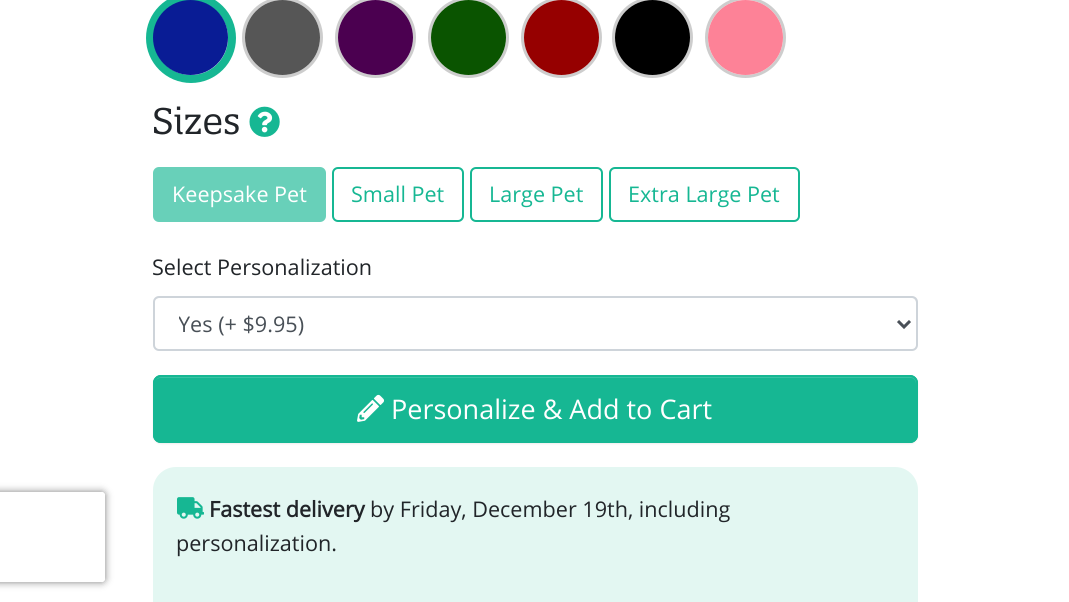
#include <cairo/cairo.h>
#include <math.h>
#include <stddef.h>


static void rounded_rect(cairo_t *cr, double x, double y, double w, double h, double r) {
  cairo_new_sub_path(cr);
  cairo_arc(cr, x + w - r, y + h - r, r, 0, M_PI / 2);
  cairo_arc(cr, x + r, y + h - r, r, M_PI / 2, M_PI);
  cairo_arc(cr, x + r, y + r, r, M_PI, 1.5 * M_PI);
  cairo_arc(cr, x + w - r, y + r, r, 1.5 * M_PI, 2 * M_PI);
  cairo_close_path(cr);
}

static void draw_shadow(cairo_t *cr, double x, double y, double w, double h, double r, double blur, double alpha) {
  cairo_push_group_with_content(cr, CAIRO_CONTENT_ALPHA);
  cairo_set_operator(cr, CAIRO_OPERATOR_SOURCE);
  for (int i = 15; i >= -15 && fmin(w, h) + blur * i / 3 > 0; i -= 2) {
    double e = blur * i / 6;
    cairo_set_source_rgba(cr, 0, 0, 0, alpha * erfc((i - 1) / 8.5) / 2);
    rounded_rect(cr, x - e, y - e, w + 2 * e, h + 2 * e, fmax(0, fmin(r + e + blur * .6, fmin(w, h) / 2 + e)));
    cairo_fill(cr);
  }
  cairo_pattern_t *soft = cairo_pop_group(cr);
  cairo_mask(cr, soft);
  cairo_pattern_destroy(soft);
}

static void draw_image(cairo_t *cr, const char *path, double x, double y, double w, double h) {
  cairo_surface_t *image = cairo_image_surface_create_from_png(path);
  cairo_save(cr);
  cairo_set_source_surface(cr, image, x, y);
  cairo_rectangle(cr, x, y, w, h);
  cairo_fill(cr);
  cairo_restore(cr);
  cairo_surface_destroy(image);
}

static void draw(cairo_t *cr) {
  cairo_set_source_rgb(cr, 1, 1, 1);
  cairo_paint(cr);
  cairo_save(cr);
  cairo_set_fill_rule(cr, CAIRO_FILL_RULE_EVEN_ODD);
  cairo_new_path(cr);
  cairo_move_to(cr, 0, 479);
  cairo_line_to(cr, 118, 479);
  cairo_line_to(cr, 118, 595);
  cairo_line_to(cr, 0, 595);
  cairo_close_path(cr);
  cairo_move_to(cr, -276, 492);
  cairo_line_to(cr, 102, 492);
  cairo_curve_to(cr, 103.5, 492, 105, 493.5, 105, 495);
  cairo_line_to(cr, 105, 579);
  cairo_curve_to(cr, 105, 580.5, 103.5, 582, 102, 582);
  cairo_line_to(cr, -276, 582);
  cairo_curve_to(cr, -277.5, 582, -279, 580.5, -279, 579);
  cairo_line_to(cr, -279, 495);
  cairo_curve_to(cr, -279, 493.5, -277.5, 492, -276, 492);
  cairo_close_path(cr);
  cairo_clip(cr);
  cairo_set_source_rgb(cr, 128 / 255.0, 128 / 255.0, 128 / 255.0);
  draw_shadow(cr, -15, 492, 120, 90, 3, 4, 1);
  cairo_restore(cr);
  cairo_arc(cr, 191, 38, 41, 0, 2 * M_PI);
  cairo_set_source_rgb(cr, 22 / 255.0, 183 / 255.0, 147 / 255.0);
  cairo_set_line_width(cr, 8);
  cairo_stroke(cr);
  cairo_set_source_rgb(cr, 9 / 255.0, 28 / 255.0, 149 / 255.0);
  cairo_arc(cr, 190.5, 37.5, 37.5, 0, 2 * M_PI);
  cairo_fill(cr);
  cairo_arc(cr, 282.5, 37.5, 39, 0, 2 * M_PI);
  cairo_set_source_rgb(cr, 205 / 255.0, 205 / 255.0, 205 / 255.0);
  cairo_set_line_width(cr, 3);
  cairo_stroke(cr);
  cairo_set_source_rgb(cr, 86 / 255.0, 86 / 255.0, 86 / 255.0);
  cairo_arc(cr, 282.5, 37.5, 37.5, 0, 2 * M_PI);
  cairo_fill(cr);
  cairo_arc(cr, 375.5, 37.5, 39, 0, 2 * M_PI);
  cairo_set_source_rgb(cr, 205 / 255.0, 205 / 255.0, 205 / 255.0);
  cairo_stroke(cr);
  cairo_set_source_rgb(cr, 75 / 255.0, 0, 80 / 255.0);
  cairo_arc(cr, 375.5, 37.5, 37.5, 0, 2 * M_PI);
  cairo_fill(cr);
  cairo_arc(cr, 468.5, 37.5, 39, 0, 2 * M_PI);
  cairo_set_source_rgb(cr, 205 / 255.0, 205 / 255.0, 205 / 255.0);
  cairo_stroke(cr);
  cairo_set_source_rgb(cr, 10 / 255.0, 84 / 255.0, 0);
  cairo_arc(cr, 468.5, 37.5, 37.5, 0, 2 * M_PI);
  cairo_fill(cr);
  cairo_arc(cr, 561.5, 37.5, 39, 0, 2 * M_PI);
  cairo_set_source_rgb(cr, 205 / 255.0, 205 / 255.0, 205 / 255.0);
  cairo_stroke(cr);
  cairo_set_source_rgb(cr, 150 / 255.0, 0, 0);
  cairo_arc(cr, 561.5, 37.5, 37.5, 0, 2 * M_PI);
  cairo_fill(cr);
  cairo_arc(cr, 652.5, 37.5, 39, 0, 2 * M_PI);
  cairo_set_source_rgb(cr, 205 / 255.0, 205 / 255.0, 205 / 255.0);
  cairo_stroke(cr);
  cairo_set_source_rgb(cr, 0, 0, 0);
  cairo_arc(cr, 652.5, 37.5, 37.5, 0, 2 * M_PI);
  cairo_fill(cr);
  cairo_arc(cr, 745.5, 37.5, 39, 0, 2 * M_PI);
  cairo_set_source_rgb(cr, 205 / 255.0, 205 / 255.0, 205 / 255.0);
  cairo_stroke(cr);
  cairo_set_source_rgb(cr, 253 / 255.0, 130 / 255.0, 151 / 255.0);
  cairo_arc(cr, 745.5, 37.5, 37.5, 0, 2 * M_PI);
  cairo_fill(cr);
  draw_image(cr, "images/1.png", 249, 106, 31, 31);
  cairo_set_source_rgb(cr, 104 / 255.0, 208 / 255.0, 185 / 255.0);
  rounded_rect(cr, 154, 168, 171, 53, 5);
  cairo_fill_preserve(cr);
  cairo_set_line_width(cr, 2);
  cairo_stroke(cr);
  rounded_rect(cr, 333, 168, 130, 53, 5);
  cairo_set_source_rgb(cr, 22 / 255.0, 183 / 255.0, 147 / 255.0);
  cairo_stroke(cr);
  rounded_rect(cr, 471, 168, 131, 53, 5);
  cairo_stroke(cr);
  rounded_rect(cr, 610, 168, 189, 53, 5);
  cairo_stroke(cr);
  cairo_set_source_rgb(cr, 236 / 255.0, 236 / 255.0, 236 / 255.0);
  cairo_new_path(cr);
  cairo_move_to(cr, 159, 298);
  cairo_line_to(cr, 912, 298);
  cairo_curve_to(cr, 914, 298, 916, 301, 916, 303);
  cairo_line_to(cr, 916, 346);
  cairo_line_to(cr, 915, 349);
  cairo_curve_to(cr, 916, 348, 917, 346, 917, 345);
  cairo_line_to(cr, 917, 302);
  cairo_curve_to(cr, 917, 299, 915, 297, 912, 297);
  cairo_line_to(cr, 160, 297);
  cairo_curve_to(cr, 158, 297, 156, 298, 155, 300);
  cairo_curve_to(cr, 156, 299, 158, 298, 159, 298);
  cairo_close_path(cr);
  cairo_fill(cr);
  rounded_rect(cr, 154, 297, 763, 53, 5);
  cairo_set_source_rgb(cr, 206 / 255.0, 212 / 255.0, 218 / 255.0);
  cairo_stroke(cr);
  cairo_new_path(cr);
  cairo_move_to(cr, 898, 321);
  cairo_line_to(cr, 904, 327);
  cairo_line_to(cr, 910, 321);
  cairo_set_source_rgb(cr, 73 / 255.0, 80 / 255.0, 87 / 255.0);
  cairo_set_line_width(cr, 3);
  cairo_stroke(cr);
  cairo_set_source_rgb(cr, 0, 0, 0);
  draw_shadow(cr, 153, 377, 765, 67, 8, 1, 0.07);
  cairo_set_source_rgb(cr, 22 / 255.0, 183 / 255.0, 147 / 255.0);
  rounded_rect(cr, 153, 375, 765, 68, 8);
  cairo_fill(cr);
  cairo_set_source_rgb(cr, 57 / 255.0, 194 / 255.0, 163 / 255.0);
  cairo_new_path(cr);
  cairo_move_to(cr, 160, 378);
  cairo_line_to(cr, 911, 378);
  cairo_curve_to(cr, 914, 378, 916, 381, 916, 384);
  cairo_line_to(cr, 916, 439);
  cairo_curve_to(cr, 917, 438, 917, 436, 917, 435);
  cairo_line_to(cr, 917, 383);
  cairo_curve_to(cr, 917, 380, 914, 377, 911, 377);
  cairo_line_to(cr, 161, 377);
  cairo_curve_to(cr, 159, 377, 157, 378, 156, 380);
  cairo_curve_to(cr, 157, 379, 159, 378, 160, 378);
  cairo_close_path(cr);
  cairo_fill(cr);
  rounded_rect(cr, 154, 376, 763, 66, 7);
  cairo_set_source_rgb(cr, 22 / 255.0, 183 / 255.0, 147 / 255.0);
  cairo_set_line_width(cr, 2);
  cairo_stroke(cr);
  draw_image(cr, "images/2.png", 357, 394, 27, 28);
  cairo_set_source_rgb(cr, 227 / 255.0, 247 / 255.0, 242 / 255.0);
  rounded_rect(cr, 153, 467, 765, 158, 23);
  cairo_fill(cr);
  draw_image(cr, "images/3.png", 177, 497, 27, 22);
  cairo_select_font_face(cr, "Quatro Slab", CAIRO_FONT_SLANT_NORMAL, CAIRO_FONT_WEIGHT_NORMAL);
  cairo_set_font_size(cr, 36);
  cairo_set_source_rgb(cr, 33 / 255.0, 37 / 255.0, 41 / 255.0);
  cairo_move_to(cr, 152, 134);
  cairo_show_text(cr, "Sizes");
  cairo_select_font_face(cr, "Open Sans", CAIRO_FONT_SLANT_NORMAL, CAIRO_FONT_WEIGHT_NORMAL);
  cairo_set_font_size(cr, 21.6);
  cairo_set_source_rgb(cr, 1, 1, 1);
  cairo_move_to(cr, 172, 202);
  cairo_show_text(cr, "Keepsake Pet");
  cairo_set_source_rgb(cr, 22 / 255.0, 183 / 255.0, 147 / 255.0);
  cairo_move_to(cr, 351, 202);
  cairo_show_text(cr, "Small Pet");
  cairo_move_to(cr, 489, 202);
  cairo_show_text(cr, "Large Pet");
  cairo_move_to(cr, 628, 202);
  cairo_show_text(cr, "Extra Large Pet");
  cairo_set_source_rgb(cr, 33 / 255.0, 37 / 255.0, 41 / 255.0);
  cairo_move_to(cr, 152, 275);
  cairo_show_text(cr, "Select Personalization");
  cairo_save(cr);
  cairo_rectangle(cr, 179, 308, 696, 31);
  cairo_clip(cr);
  cairo_set_source_rgb(cr, 73 / 255.0, 80 / 255.0, 87 / 255.0);
  cairo_move_to(cr, 178, 332);
  cairo_show_text(cr, "Yes (+ $9.95)");
  cairo_restore(cr);
  cairo_set_font_size(cr, 27);
  cairo_set_source_rgb(cr, 1, 1, 1);
  cairo_move_to(cr, 391, 419);
  cairo_show_text(cr, "Personalize & Add to Cart");
  cairo_select_font_face(cr, "Open Sans", CAIRO_FONT_SLANT_NORMAL, CAIRO_FONT_WEIGHT_BOLD);
  cairo_set_font_size(cr, 21.6);
  cairo_set_source_rgb(cr, 33 / 255.0, 37 / 255.0, 41 / 255.0);
  cairo_move_to(cr, 209, 517);
  cairo_show_text(cr, "Fastest delivery");
  cairo_select_font_face(cr, "Open Sans", CAIRO_FONT_SLANT_NORMAL, CAIRO_FONT_WEIGHT_NORMAL);
  cairo_move_to(cr, 370, 517);
  cairo_show_text(cr, "by Friday, December 19th, including");
  cairo_move_to(cr, 176, 551);
  cairo_show_text(cr, "personalization.");
}

int main(void) {
  cairo_surface_t *surface = cairo_image_surface_create(CAIRO_FORMAT_RGB24, 1069, 602);
  cairo_t *cr = cairo_create(surface);
  cairo_font_options_t *options = cairo_font_options_create();
  cairo_font_options_set_hint_metrics(options, CAIRO_HINT_METRICS_OFF);
  cairo_font_options_set_hint_style(options, CAIRO_HINT_STYLE_NONE);
  cairo_set_font_options(cr, options);
  cairo_set_miter_limit(cr, 4);
  draw(cr);
  cairo_surface_write_to_png(surface, "out.png");
  cairo_font_options_destroy(options);
  cairo_destroy(cr);
  cairo_surface_destroy(surface);
  return 0;
}
